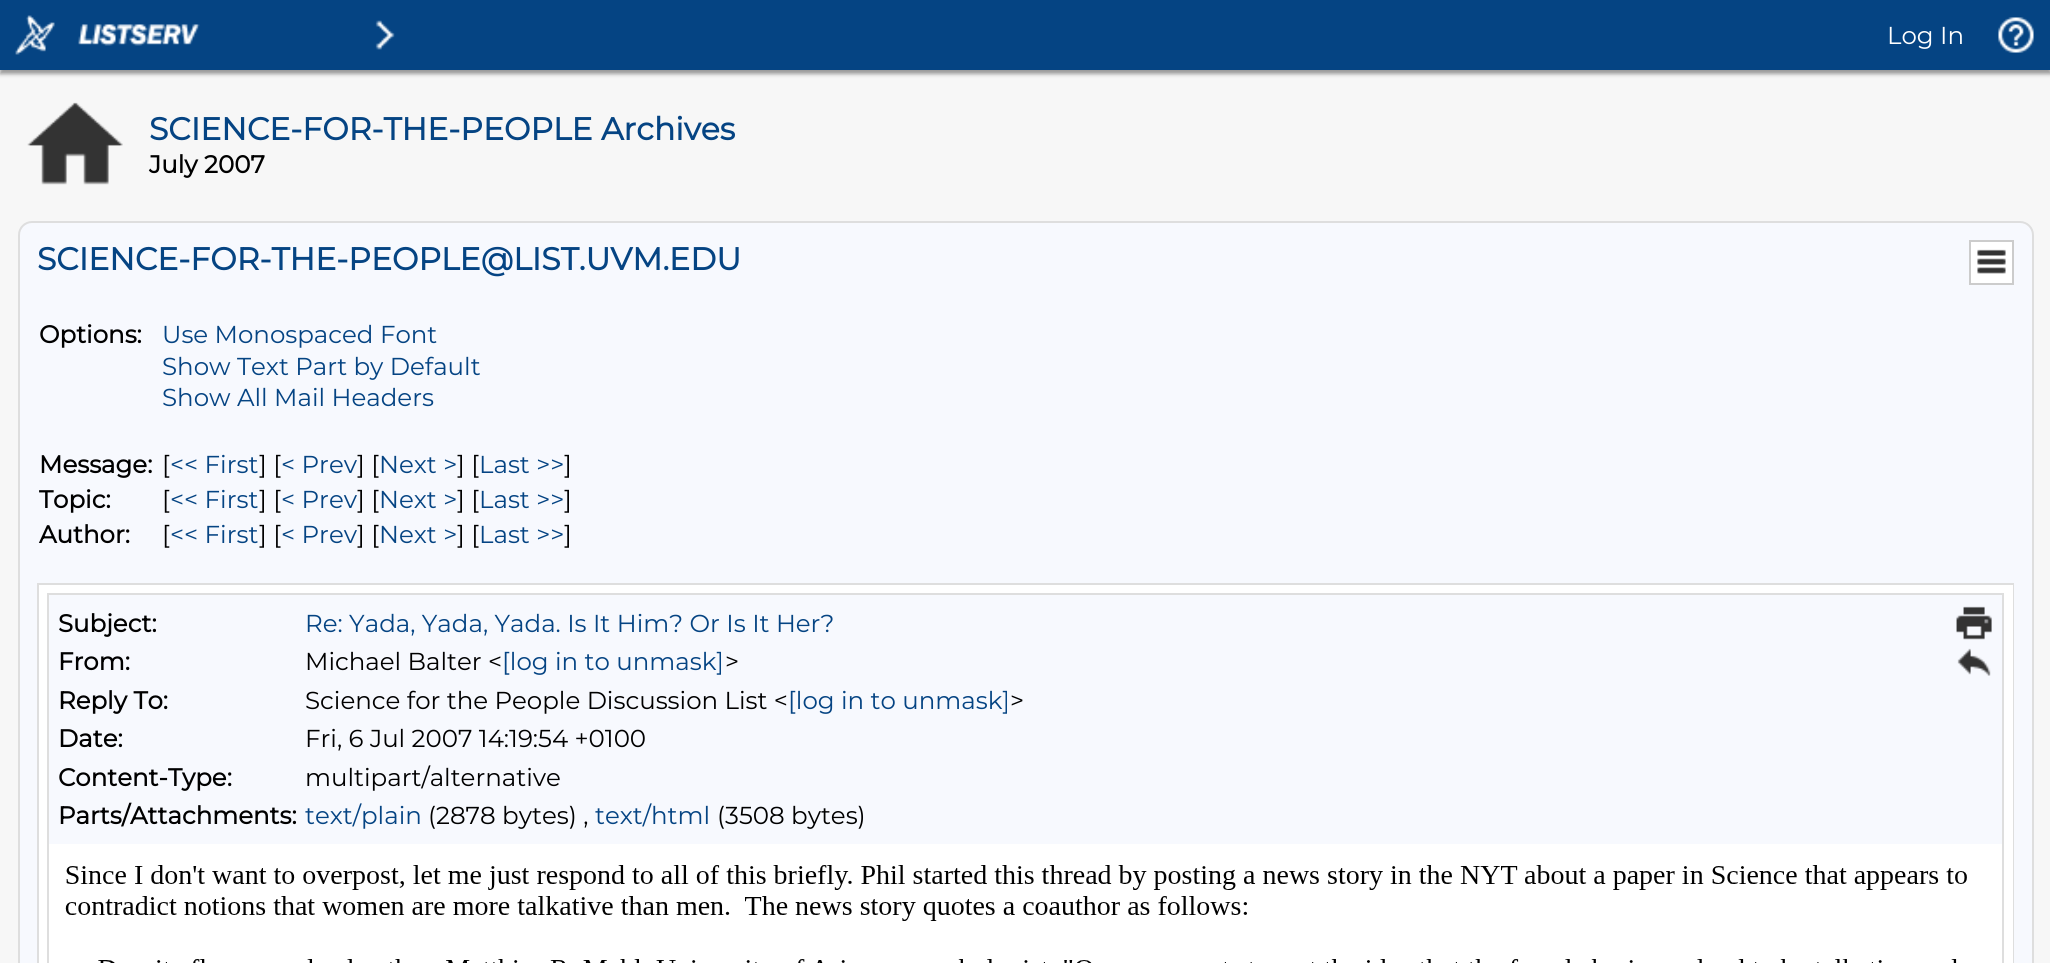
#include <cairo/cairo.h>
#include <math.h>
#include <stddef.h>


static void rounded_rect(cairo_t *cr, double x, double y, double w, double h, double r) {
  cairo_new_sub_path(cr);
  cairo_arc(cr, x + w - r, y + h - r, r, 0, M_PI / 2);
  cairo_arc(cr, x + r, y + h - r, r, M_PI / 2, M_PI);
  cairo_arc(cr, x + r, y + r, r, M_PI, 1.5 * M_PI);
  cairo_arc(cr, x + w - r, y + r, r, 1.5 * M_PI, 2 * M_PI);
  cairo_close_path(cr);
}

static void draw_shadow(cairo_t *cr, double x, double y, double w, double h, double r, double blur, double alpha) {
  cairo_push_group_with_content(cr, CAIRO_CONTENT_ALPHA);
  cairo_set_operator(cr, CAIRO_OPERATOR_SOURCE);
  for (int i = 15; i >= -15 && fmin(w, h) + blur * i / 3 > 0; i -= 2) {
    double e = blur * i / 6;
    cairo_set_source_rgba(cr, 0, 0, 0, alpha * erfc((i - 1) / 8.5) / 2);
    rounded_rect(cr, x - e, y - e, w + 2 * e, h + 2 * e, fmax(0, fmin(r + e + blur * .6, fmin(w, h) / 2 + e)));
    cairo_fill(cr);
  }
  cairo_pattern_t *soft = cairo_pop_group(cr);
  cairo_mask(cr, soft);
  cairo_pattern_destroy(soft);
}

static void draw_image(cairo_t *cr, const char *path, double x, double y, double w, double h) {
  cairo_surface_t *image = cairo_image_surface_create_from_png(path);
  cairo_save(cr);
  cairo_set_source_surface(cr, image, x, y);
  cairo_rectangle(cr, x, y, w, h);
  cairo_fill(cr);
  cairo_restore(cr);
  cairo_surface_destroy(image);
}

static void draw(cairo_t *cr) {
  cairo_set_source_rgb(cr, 247 / 255.0, 247 / 255.0, 247 / 255.0);
  cairo_paint(cr);
  cairo_set_source_rgb(cr, 153 / 255.0, 153 / 255.0, 153 / 255.0);
  draw_shadow(cr, 0, 4, 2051, 70, 0, 2, 1);
  cairo_set_source_rgb(cr, 5 / 255.0, 68 / 255.0, 131 / 255.0);
  cairo_rectangle(cr, 0, 0, 2050, 70);
  cairo_fill(cr);
  draw_image(cr, "images/1.png", 15, 15, 40, 40);
  draw_image(cr, "images/2.png", 78, 24, 122, 22);
  draw_image(cr, "images/3.png", 375, 20, 20, 30);
  draw_image(cr, "images/4.png", 1998, 17, 36, 36);
  draw_image(cr, "images/5.png", 27, 102, 96, 83);
  cairo_set_source_rgb(cr, 247 / 255.0, 249 / 255.0, 254 / 255.0);
  rounded_rect(cr, 19, 222, 2014, 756, 13);
  cairo_fill_preserve(cr);
  cairo_set_source_rgb(cr, 222 / 255.0, 222 / 255.0, 222 / 255.0);
  cairo_stroke(cr);
  cairo_set_source_rgb(cr, 1, 1, 1);
  cairo_rectangle(cr, 1970, 241, 43, 43);
  cairo_fill_preserve(cr);
  cairo_set_source_rgb(cr, 204 / 255.0, 204 / 255.0, 204 / 255.0);
  cairo_stroke(cr);
  draw_image(cr, "images/6.png", 1977, 249, 29, 25);
  cairo_rectangle(cr, 38, 584, 1975, 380);
  cairo_set_source_rgb(cr, 222 / 255.0, 222 / 255.0, 222 / 255.0);
  cairo_stroke(cr);
  cairo_set_source_rgb(cr, 1, 1, 1);
  cairo_rectangle(cr, 39, 585, 1974, 378);
  cairo_fill(cr);
  cairo_rectangle(cr, 48, 594, 1955, 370);
  cairo_set_source_rgb(cr, 222 / 255.0, 222 / 255.0, 222 / 255.0);
  cairo_stroke(cr);
  cairo_set_source_rgb(cr, 247 / 255.0, 249 / 255.0, 254 / 255.0);
  cairo_rectangle(cr, 49, 595, 1953, 249);
  cairo_fill(cr);
  draw_image(cr, "images/7.png", 1956, 606, 36, 34);
  draw_image(cr, "images/8.png", 1957, 648, 34, 28);
  draw_image(cr, "images/9.png", 65, 865, 1902, 98);
  cairo_select_font_face(cr, "Montserrat Thin", CAIRO_FONT_SLANT_NORMAL, CAIRO_FONT_WEIGHT_NORMAL);
  cairo_set_font_size(cr, 24.5);
  cairo_set_source_rgb(cr, 1, 1, 1);
  cairo_move_to(cr, 1887, 44);
  cairo_show_text(cr, "Log In");
  cairo_select_font_face(cr, "Montserrat", CAIRO_FONT_SLANT_NORMAL, CAIRO_FONT_WEIGHT_BOLD);
  cairo_set_font_size(cr, 31.5);
  cairo_set_source_rgb(cr, 5 / 255.0, 68 / 255.0, 131 / 255.0);
  cairo_move_to(cr, 149, 140);
  cairo_show_text(cr, "SCIENCE-FOR-THE-PEOPLE Archives");
  cairo_set_font_size(cr, 24.5);
  cairo_set_source_rgb(cr, 0, 0, 0);
  cairo_move_to(cr, 149, 173);
  cairo_show_text(cr, "July 2007");
  cairo_set_font_size(cr, 31.5);
  cairo_set_source_rgb(cr, 5 / 255.0, 68 / 255.0, 131 / 255.0);
  cairo_move_to(cr, 37, 270);
  cairo_show_text(cr, "SCIENCE-FOR-THE-PEOPLE@LIST.UVM.EDU");
  cairo_set_font_size(cr, 24.5);
  cairo_set_source_rgb(cr, 0, 0, 0);
  cairo_move_to(cr, 39, 343);
  cairo_show_text(cr, "Options:");
  cairo_select_font_face(cr, "Montserrat Thin", CAIRO_FONT_SLANT_NORMAL, CAIRO_FONT_WEIGHT_NORMAL);
  cairo_set_source_rgb(cr, 5 / 255.0, 68 / 255.0, 131 / 255.0);
  cairo_move_to(cr, 162, 343);
  cairo_show_text(cr, "Use Monospaced Font");
  cairo_move_to(cr, 162, 375);
  cairo_show_text(cr, "Show Text Part by Default");
  cairo_move_to(cr, 162, 406);
  cairo_show_text(cr, "Show All Mail Headers");
  cairo_select_font_face(cr, "Montserrat", CAIRO_FONT_SLANT_NORMAL, CAIRO_FONT_WEIGHT_BOLD);
  cairo_set_source_rgb(cr, 0, 0, 0);
  cairo_move_to(cr, 39, 473);
  cairo_show_text(cr, "Message:");
  cairo_select_font_face(cr, "Montserrat Thin", CAIRO_FONT_SLANT_NORMAL, CAIRO_FONT_WEIGHT_NORMAL);
  cairo_move_to(cr, 162, 473);
  cairo_show_text(cr, "[");
  cairo_set_source_rgb(cr, 5 / 255.0, 68 / 255.0, 131 / 255.0);
  cairo_move_to(cr, 170, 473);
  cairo_show_text(cr, "<< First");
  cairo_set_source_rgb(cr, 0, 0, 0);
  cairo_move_to(cr, 259, 473);
  cairo_show_text(cr, "] [");
  cairo_set_source_rgb(cr, 5 / 255.0, 68 / 255.0, 131 / 255.0);
  cairo_move_to(cr, 281, 473);
  cairo_show_text(cr, "< Prev");
  cairo_set_source_rgb(cr, 0, 0, 0);
  cairo_move_to(cr, 357, 473);
  cairo_show_text(cr, "] [");
  cairo_set_source_rgb(cr, 5 / 255.0, 68 / 255.0, 131 / 255.0);
  cairo_move_to(cr, 379, 473);
  cairo_show_text(cr, "Next >");
  cairo_set_source_rgb(cr, 0, 0, 0);
  cairo_move_to(cr, 457, 473);
  cairo_show_text(cr, "] [");
  cairo_set_source_rgb(cr, 5 / 255.0, 68 / 255.0, 131 / 255.0);
  cairo_move_to(cr, 479, 473);
  cairo_show_text(cr, "Last >>");
  cairo_set_source_rgb(cr, 0, 0, 0);
  cairo_move_to(cr, 564, 473);
  cairo_show_text(cr, "]");
  cairo_select_font_face(cr, "Montserrat", CAIRO_FONT_SLANT_NORMAL, CAIRO_FONT_WEIGHT_BOLD);
  cairo_move_to(cr, 39, 508);
  cairo_show_text(cr, "Topic:");
  cairo_select_font_face(cr, "Montserrat Thin", CAIRO_FONT_SLANT_NORMAL, CAIRO_FONT_WEIGHT_NORMAL);
  cairo_move_to(cr, 162, 508);
  cairo_show_text(cr, "[");
  cairo_set_source_rgb(cr, 5 / 255.0, 68 / 255.0, 131 / 255.0);
  cairo_move_to(cr, 170, 508);
  cairo_show_text(cr, "<< First");
  cairo_set_source_rgb(cr, 0, 0, 0);
  cairo_move_to(cr, 259, 508);
  cairo_show_text(cr, "] [");
  cairo_set_source_rgb(cr, 5 / 255.0, 68 / 255.0, 131 / 255.0);
  cairo_move_to(cr, 281, 508);
  cairo_show_text(cr, "< Prev");
  cairo_set_source_rgb(cr, 0, 0, 0);
  cairo_move_to(cr, 357, 508);
  cairo_show_text(cr, "] [");
  cairo_set_source_rgb(cr, 5 / 255.0, 68 / 255.0, 131 / 255.0);
  cairo_move_to(cr, 379, 508);
  cairo_show_text(cr, "Next >");
  cairo_set_source_rgb(cr, 0, 0, 0);
  cairo_move_to(cr, 457, 508);
  cairo_show_text(cr, "] [");
  cairo_set_source_rgb(cr, 5 / 255.0, 68 / 255.0, 131 / 255.0);
  cairo_move_to(cr, 479, 508);
  cairo_show_text(cr, "Last >>");
  cairo_set_source_rgb(cr, 0, 0, 0);
  cairo_move_to(cr, 564, 508);
  cairo_show_text(cr, "]");
  cairo_select_font_face(cr, "Montserrat", CAIRO_FONT_SLANT_NORMAL, CAIRO_FONT_WEIGHT_BOLD);
  cairo_move_to(cr, 39, 543);
  cairo_show_text(cr, "Author:");
  cairo_select_font_face(cr, "Montserrat Thin", CAIRO_FONT_SLANT_NORMAL, CAIRO_FONT_WEIGHT_NORMAL);
  cairo_move_to(cr, 162, 543);
  cairo_show_text(cr, "[");
  cairo_set_source_rgb(cr, 5 / 255.0, 68 / 255.0, 131 / 255.0);
  cairo_move_to(cr, 170, 543);
  cairo_show_text(cr, "<< First");
  cairo_set_source_rgb(cr, 0, 0, 0);
  cairo_move_to(cr, 259, 543);
  cairo_show_text(cr, "] [");
  cairo_set_source_rgb(cr, 5 / 255.0, 68 / 255.0, 131 / 255.0);
  cairo_move_to(cr, 281, 543);
  cairo_show_text(cr, "< Prev");
  cairo_set_source_rgb(cr, 0, 0, 0);
  cairo_move_to(cr, 357, 543);
  cairo_show_text(cr, "] [");
  cairo_set_source_rgb(cr, 5 / 255.0, 68 / 255.0, 131 / 255.0);
  cairo_move_to(cr, 379, 543);
  cairo_show_text(cr, "Next >");
  cairo_set_source_rgb(cr, 0, 0, 0);
  cairo_move_to(cr, 457, 543);
  cairo_show_text(cr, "] [");
  cairo_set_source_rgb(cr, 5 / 255.0, 68 / 255.0, 131 / 255.0);
  cairo_move_to(cr, 479, 543);
  cairo_show_text(cr, "Last >>");
  cairo_set_source_rgb(cr, 0, 0, 0);
  cairo_move_to(cr, 564, 543);
  cairo_show_text(cr, "]");
  cairo_select_font_face(cr, "Montserrat", CAIRO_FONT_SLANT_NORMAL, CAIRO_FONT_WEIGHT_BOLD);
  cairo_move_to(cr, 58, 632);
  cairo_show_text(cr, "Subject:");
  cairo_select_font_face(cr, "Montserrat Thin", CAIRO_FONT_SLANT_NORMAL, CAIRO_FONT_WEIGHT_NORMAL);
  cairo_set_source_rgb(cr, 5 / 255.0, 68 / 255.0, 131 / 255.0);
  cairo_move_to(cr, 305, 632);
  cairo_show_text(cr, "Re: Yada, Yada, Yada. Is It Him? Or Is It Her?");
  cairo_select_font_face(cr, "Montserrat", CAIRO_FONT_SLANT_NORMAL, CAIRO_FONT_WEIGHT_BOLD);
  cairo_set_source_rgb(cr, 0, 0, 0);
  cairo_move_to(cr, 58, 670);
  cairo_show_text(cr, "From:");
  cairo_select_font_face(cr, "Montserrat Thin", CAIRO_FONT_SLANT_NORMAL, CAIRO_FONT_WEIGHT_NORMAL);
  cairo_move_to(cr, 305, 670);
  cairo_show_text(cr, "Michael Balter <");
  cairo_set_source_rgb(cr, 5 / 255.0, 68 / 255.0, 131 / 255.0);
  cairo_move_to(cr, 502, 670);
  cairo_show_text(cr, "[log in to unmask]");
  cairo_set_source_rgb(cr, 0, 0, 0);
  cairo_move_to(cr, 725, 670);
  cairo_show_text(cr, ">");
  cairo_select_font_face(cr, "Montserrat", CAIRO_FONT_SLANT_NORMAL, CAIRO_FONT_WEIGHT_BOLD);
  cairo_move_to(cr, 58, 709);
  cairo_show_text(cr, "Reply To:");
  cairo_select_font_face(cr, "Montserrat Thin", CAIRO_FONT_SLANT_NORMAL, CAIRO_FONT_WEIGHT_NORMAL);
  cairo_move_to(cr, 305, 709);
  cairo_show_text(cr, "Science for the People Discussion List <");
  cairo_set_source_rgb(cr, 5 / 255.0, 68 / 255.0, 131 / 255.0);
  cairo_move_to(cr, 788, 709);
  cairo_show_text(cr, "[log in to unmask]");
  cairo_set_source_rgb(cr, 0, 0, 0);
  cairo_move_to(cr, 1010, 709);
  cairo_show_text(cr, ">");
  cairo_select_font_face(cr, "Montserrat", CAIRO_FONT_SLANT_NORMAL, CAIRO_FONT_WEIGHT_BOLD);
  cairo_move_to(cr, 58, 747);
  cairo_show_text(cr, "Date:");
  cairo_select_font_face(cr, "Montserrat Thin", CAIRO_FONT_SLANT_NORMAL, CAIRO_FONT_WEIGHT_NORMAL);
  cairo_move_to(cr, 305, 747);
  cairo_show_text(cr, "Fri, 6 Jul 2007 14:19:54 +0100");
  cairo_select_font_face(cr, "Montserrat", CAIRO_FONT_SLANT_NORMAL, CAIRO_FONT_WEIGHT_BOLD);
  cairo_move_to(cr, 58, 786);
  cairo_show_text(cr, "Content-Type:");
  cairo_select_font_face(cr, "Montserrat Thin", CAIRO_FONT_SLANT_NORMAL, CAIRO_FONT_WEIGHT_NORMAL);
  cairo_move_to(cr, 305, 786);
  cairo_show_text(cr, "multipart/alternative");
  cairo_select_font_face(cr, "Montserrat", CAIRO_FONT_SLANT_NORMAL, CAIRO_FONT_WEIGHT_BOLD);
  cairo_move_to(cr, 58, 824);
  cairo_show_text(cr, "Parts/Attachments:");
  cairo_select_font_face(cr, "Montserrat Thin", CAIRO_FONT_SLANT_NORMAL, CAIRO_FONT_WEIGHT_NORMAL);
  cairo_set_source_rgb(cr, 5 / 255.0, 68 / 255.0, 131 / 255.0);
  cairo_move_to(cr, 305, 824);
  cairo_show_text(cr, "text/plain");
  cairo_set_source_rgb(cr, 0, 0, 0);
  cairo_move_to(cr, 428, 824);
  cairo_show_text(cr, "(2878 bytes) ,");
  cairo_set_source_rgb(cr, 5 / 255.0, 68 / 255.0, 131 / 255.0);
  cairo_move_to(cr, 595, 824);
  cairo_show_text(cr, "text/html");
  cairo_set_source_rgb(cr, 0, 0, 0);
  cairo_move_to(cr, 717, 824);
  cairo_show_text(cr, "(3508 bytes)");
}

int main(void) {
  cairo_surface_t *surface = cairo_image_surface_create(CAIRO_FORMAT_RGB24, 2050, 963);
  cairo_t *cr = cairo_create(surface);
  cairo_font_options_t *options = cairo_font_options_create();
  cairo_font_options_set_hint_metrics(options, CAIRO_HINT_METRICS_OFF);
  cairo_font_options_set_hint_style(options, CAIRO_HINT_STYLE_NONE);
  cairo_set_font_options(cr, options);
  cairo_set_miter_limit(cr, 4);
  draw(cr);
  cairo_surface_write_to_png(surface, "out.png");
  cairo_font_options_destroy(options);
  cairo_destroy(cr);
  cairo_surface_destroy(surface);
  return 0;
}
